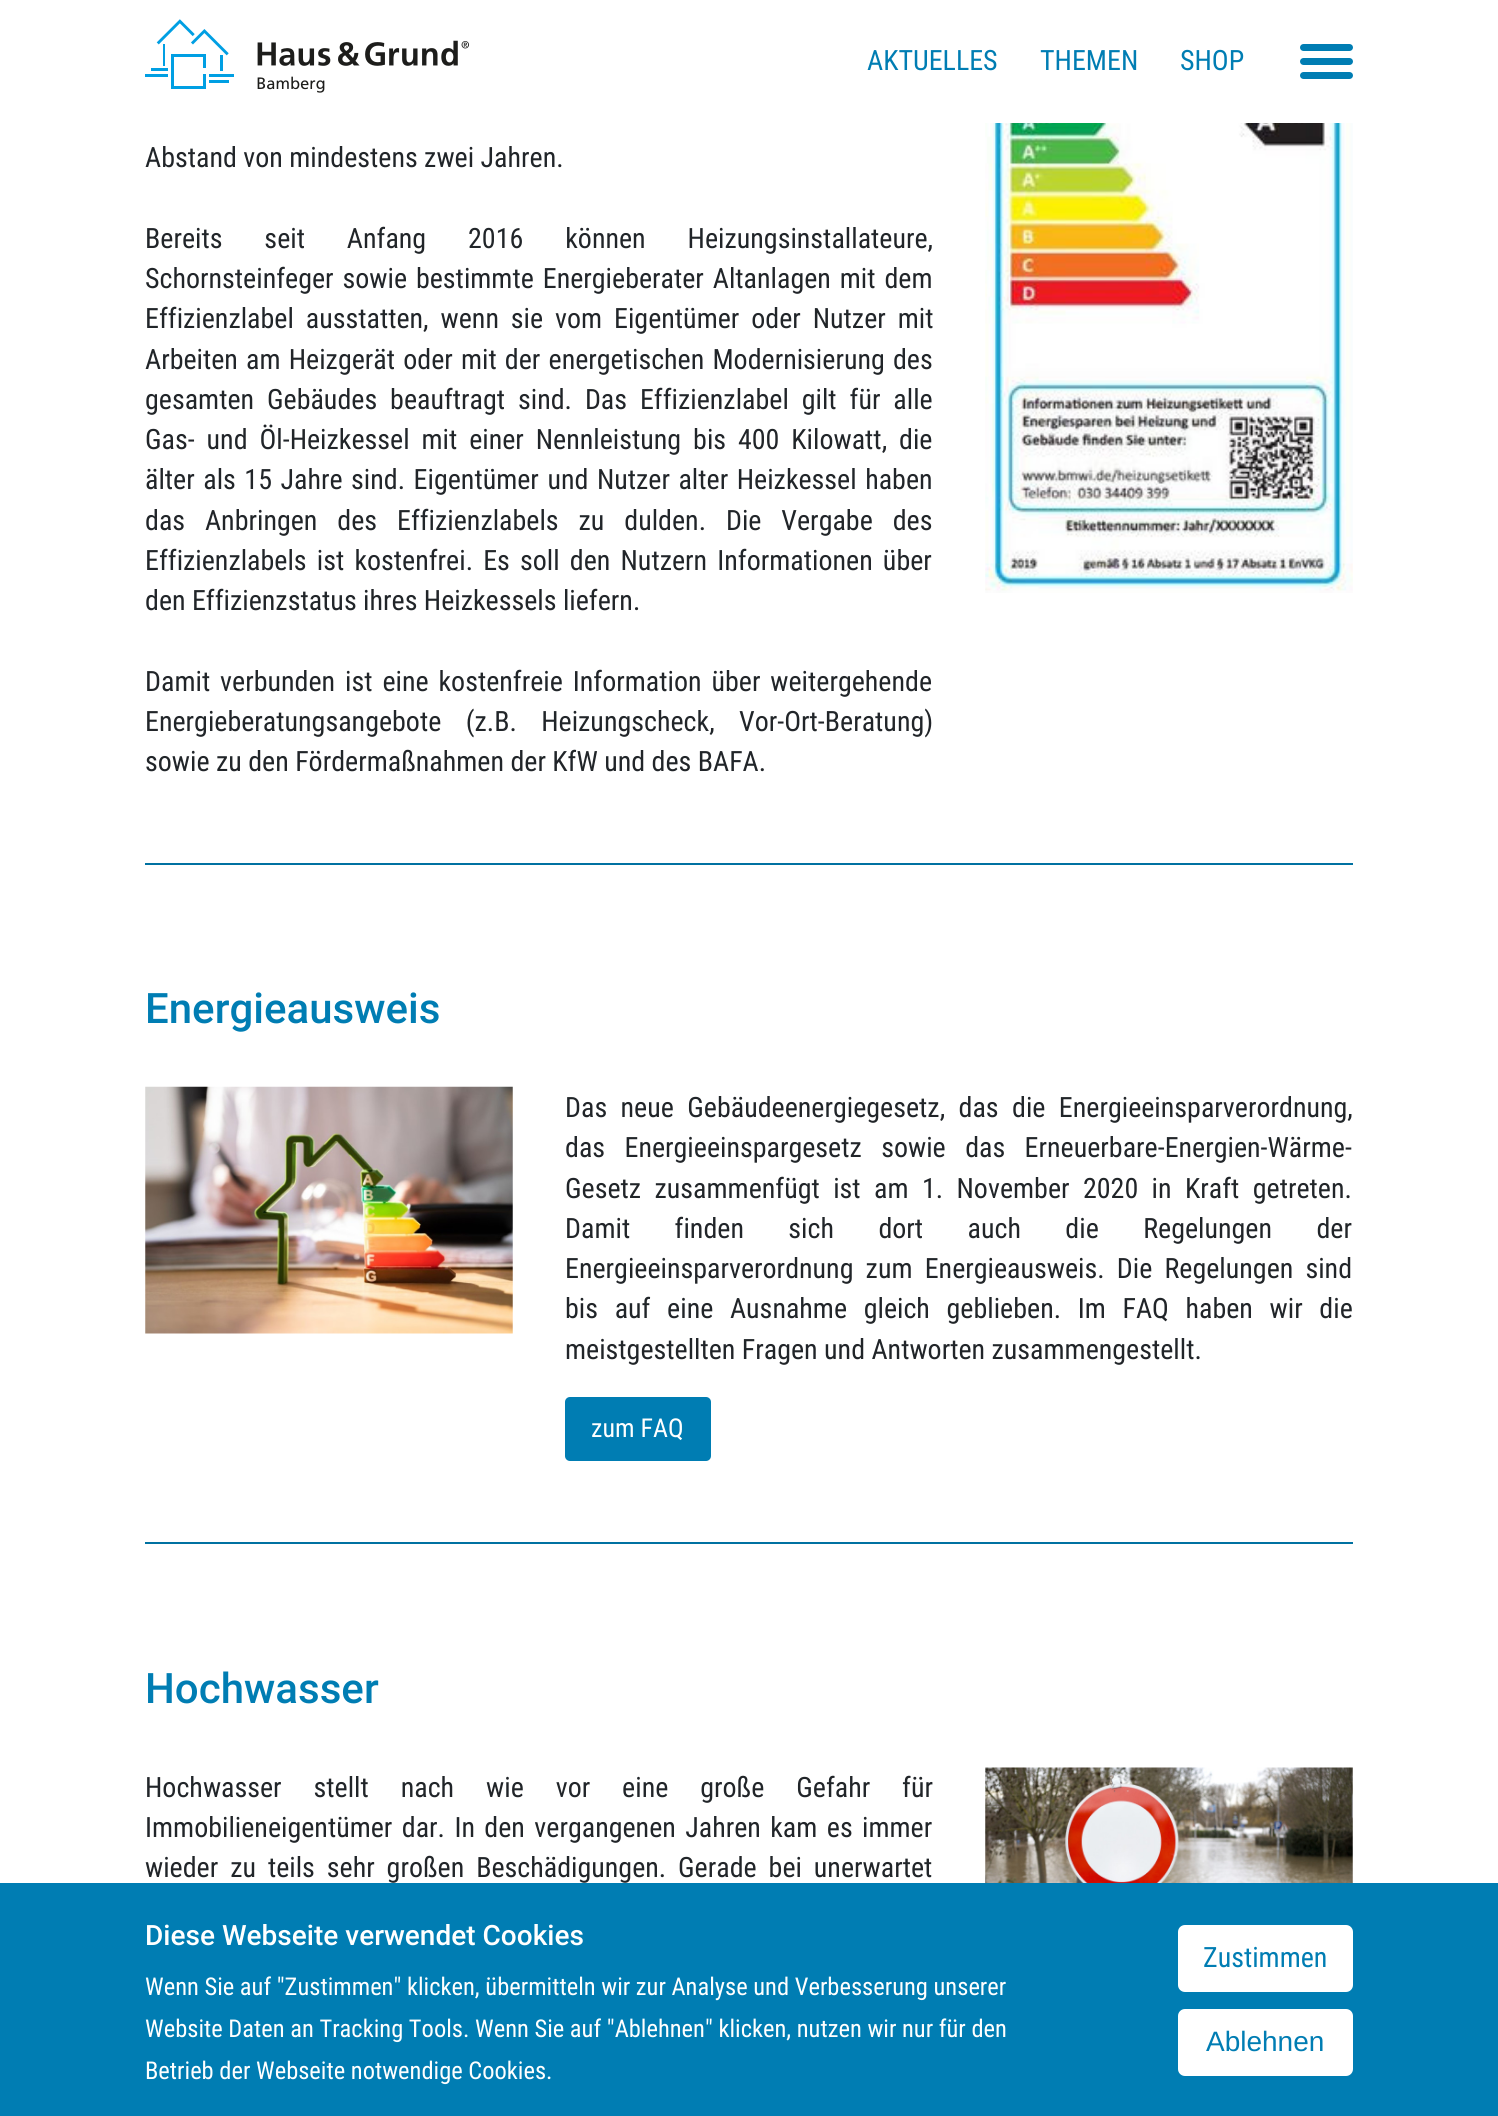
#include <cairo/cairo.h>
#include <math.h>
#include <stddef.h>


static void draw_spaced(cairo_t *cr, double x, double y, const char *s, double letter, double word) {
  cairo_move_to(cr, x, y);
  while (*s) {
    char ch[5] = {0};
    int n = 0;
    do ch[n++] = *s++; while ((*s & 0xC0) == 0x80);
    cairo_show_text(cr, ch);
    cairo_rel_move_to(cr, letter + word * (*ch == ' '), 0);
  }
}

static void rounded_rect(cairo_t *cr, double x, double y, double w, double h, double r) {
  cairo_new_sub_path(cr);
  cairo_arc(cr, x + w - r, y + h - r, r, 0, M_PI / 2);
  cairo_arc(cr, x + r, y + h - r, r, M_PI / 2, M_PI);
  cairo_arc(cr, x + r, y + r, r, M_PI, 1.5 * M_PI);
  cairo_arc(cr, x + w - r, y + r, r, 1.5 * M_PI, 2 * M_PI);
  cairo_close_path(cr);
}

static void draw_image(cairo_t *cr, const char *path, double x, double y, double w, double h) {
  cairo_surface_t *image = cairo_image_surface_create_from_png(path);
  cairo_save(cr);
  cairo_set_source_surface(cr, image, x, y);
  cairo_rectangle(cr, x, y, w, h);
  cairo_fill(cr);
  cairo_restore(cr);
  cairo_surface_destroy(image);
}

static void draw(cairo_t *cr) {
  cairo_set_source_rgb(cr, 1, 1, 1);
  cairo_paint(cr);
  draw_image(cr, "images/1.png", 145, 19, 324, 74);
  cairo_set_source_rgb(cr, 0, 125 / 255.0, 179 / 255.0);
  rounded_rect(cr, 1300, 44, 53, 7, 3.5);
  cairo_fill(cr);
  rounded_rect(cr, 1300, 58, 53, 7, 3.5);
  cairo_fill(cr);
  rounded_rect(cr, 1300, 72, 53, 7, 3.5);
  cairo_fill(cr);
  draw_image(cr, "images/2.png", 985, 123, 368, 470);
  cairo_set_source_rgb(cr, 0, 113 / 255.0, 161 / 255.0);
  cairo_rectangle(cr, 145, 863, 1208, 2);
  cairo_fill(cr);
  draw_image(cr, "images/3.png", 145, 1086, 368, 248);
  cairo_set_source_rgb(cr, 0, 125 / 255.0, 179 / 255.0);
  rounded_rect(cr, 565, 1397, 146, 64, 5);
  cairo_fill(cr);
  cairo_set_source_rgb(cr, 0, 113 / 255.0, 161 / 255.0);
  cairo_rectangle(cr, 145, 1542, 1208, 2);
  cairo_fill(cr);
  draw_image(cr, "images/4.png", 985, 1767, 368, 116);
  cairo_set_source_rgb(cr, 0, 125 / 255.0, 179 / 255.0);
  cairo_rectangle(cr, 0, 1883, 1498, 233);
  cairo_fill(cr);
  cairo_set_source_rgb(cr, 1, 1, 1);
  rounded_rect(cr, 1179, 1926, 173, 65, 6);
  cairo_fill_preserve(cr);
  cairo_stroke(cr);
  rounded_rect(cr, 1179, 2010, 173, 65, 6);
  cairo_fill_preserve(cr);
  cairo_stroke(cr);
  cairo_select_font_face(cr, "Roboto Condensed", CAIRO_FONT_SLANT_NORMAL, CAIRO_FONT_WEIGHT_NORMAL);
  cairo_set_font_size(cr, 28);
  cairo_set_source_rgb(cr, 0, 125 / 255.0, 179 / 255.0);
  cairo_move_to(cr, 867, 70);
  cairo_show_text(cr, "AKTUELLES");
  cairo_move_to(cr, 1040, 70);
  cairo_show_text(cr, "THEMEN");
  cairo_move_to(cr, 1180, 70);
  cairo_show_text(cr, "SHOP");
  cairo_set_source_rgb(cr, 33 / 255.0, 37 / 255.0, 41 / 255.0);
  cairo_move_to(cr, 145, 167);
  cairo_show_text(cr, "Abstand von mindestens zwei Jahren.");
  draw_spaced(cr, 145, 248, "Bereits seit Anfang 2016 können Heizungsinstallateure,", 0, 35.5);
  draw_spaced(cr, 145, 288, "Schornsteinfeger sowie bestimmte Energieberater Altanlagen mit dem", 0, 2.5);
  draw_spaced(cr, 145, 328, "Effizienzlabel ausstatten, wenn sie vom Eigentümer oder Nutzer mit", 0, 5.5);
  draw_spaced(cr, 145, 369, "Arbeiten am Heizgerät oder mit der energetischen Modernisierung des", 0, 1.75);
  draw_spaced(cr, 145, 409, "gesamten Gebäudes beauftragt sind. Das Effizienzlabel gilt für alle", 0, 6.5);
  draw_spaced(cr, 145, 449, "Gas- und Öl-Heizkessel mit einer Nennleistung bis 400 Kilowatt, die", 0, 5.5);
  draw_spaced(cr, 145, 489, "älter als 15 Jahre sind. Eigentümer und Nutzer alter Heizkessel haben", 0, 2.1);
  draw_spaced(cr, 145, 530, "das Anbringen des Effizienzlabels zu dulden. Die Vergabe des", 0, 13.5);
  draw_spaced(cr, 145, 570, "Effizienzlabels ist kostenfrei. Es soll den Nutzern Informationen über", 0, 3.75);
  cairo_move_to(cr, 145, 610);
  cairo_show_text(cr, "den Effizienzstatus ihres Heizkessels liefern.");
  draw_spaced(cr, 145, 691, "Damit verbunden ist eine kostenfreie Information über weitergehende", 0, 3.5);
  draw_spaced(cr, 145, 731, "Energieberatungsangebote (z.B. Heizungscheck, Vor-Ort-Beratung)", 0, 18);
  cairo_move_to(cr, 145, 771);
  cairo_show_text(cr, "sowie zu den Fördermaßnahmen der KfW und des BAFA.");
  cairo_select_font_face(cr, "Roboto Medium", CAIRO_FONT_SLANT_NORMAL, CAIRO_FONT_WEIGHT_NORMAL);
  cairo_set_font_size(cr, 42);
  cairo_set_source_rgb(cr, 0, 125 / 255.0, 179 / 255.0);
  cairo_move_to(cr, 145, 1023);
  cairo_show_text(cr, "Energieausweis");
  cairo_select_font_face(cr, "Roboto Condensed", CAIRO_FONT_SLANT_NORMAL, CAIRO_FONT_WEIGHT_NORMAL);
  cairo_set_font_size(cr, 28);
  cairo_set_source_rgb(cr, 33 / 255.0, 37 / 255.0, 41 / 255.0);
  draw_spaced(cr, 565, 1117, "Das neue Gebäudeenergiegesetz, das die Energieeinsparverordnung,", 0, 7);
  draw_spaced(cr, 565, 1157, "das Energieeinspargesetz sowie das Erneuerbare-Energien-Wärme-", 0, 13);
  draw_spaced(cr, 565, 1198, "Gesetz zusammenfügt ist am 1. November 2020 in Kraft getreten.", 0, 7);
  draw_spaced(cr, 565, 1238, "Damit finden sich dort auch die Regelungen der", 0, 38);
  draw_spaced(cr, 565, 1278, "Energieeinsparverordnung zum Energieausweis. Die Regelungen sind", 0, 5.75);
  draw_spaced(cr, 565, 1318, "bis auf eine Ausnahme gleich geblieben. Im FAQ haben wir die", 0, 10.25);
  cairo_move_to(cr, 565, 1359);
  cairo_show_text(cr, "meistgestellten Fragen und Antworten zusammengestellt.");
  cairo_set_font_size(cr, 26);
  cairo_set_source_rgb(cr, 1, 1, 1);
  cairo_move_to(cr, 591, 1437);
  cairo_show_text(cr, "zum FAQ");
  cairo_select_font_face(cr, "Roboto Medium", CAIRO_FONT_SLANT_NORMAL, CAIRO_FONT_WEIGHT_NORMAL);
  cairo_set_font_size(cr, 42);
  cairo_set_source_rgb(cr, 0, 125 / 255.0, 179 / 255.0);
  cairo_move_to(cr, 145, 1703);
  cairo_show_text(cr, "Hochwasser");
  cairo_select_font_face(cr, "Roboto Condensed", CAIRO_FONT_SLANT_NORMAL, CAIRO_FONT_WEIGHT_NORMAL);
  cairo_set_font_size(cr, 28);
  cairo_set_source_rgb(cr, 33 / 255.0, 37 / 255.0, 41 / 255.0);
  draw_spaced(cr, 145, 1797, "Hochwasser stellt nach wie vor eine große Gefahr für", 0, 25.5);
  draw_spaced(cr, 145, 1837, "Immobilieneigentümer dar. In den vergangenen Jahren kam es immer", 0, 3);
  draw_spaced(cr, 145, 1877, "wieder zu teils sehr großen Beschädigungen. Gerade bei unerwartet", 0, 5.5);
  cairo_select_font_face(cr, "Roboto Medium", CAIRO_FONT_SLANT_NORMAL, CAIRO_FONT_WEIGHT_NORMAL);
  cairo_set_source_rgb(cr, 1, 1, 1);
  cairo_move_to(cr, 145, 1945);
  cairo_show_text(cr, "Diese Webseite verwendet Cookies");
  cairo_select_font_face(cr, "Roboto Condensed", CAIRO_FONT_SLANT_NORMAL, CAIRO_FONT_WEIGHT_NORMAL);
  cairo_set_font_size(cr, 24.5);
  cairo_move_to(cr, 145, 1995);
  cairo_show_text(cr, "Wenn Sie auf \"Zustimmen\" klicken, übermitteln wir zur Analyse und Verbesserung unserer");
  cairo_move_to(cr, 145, 2037);
  cairo_show_text(cr, "Website Daten an Tracking Tools. Wenn Sie auf \"Ablehnen\" klicken, nutzen wir nur für den");
  cairo_move_to(cr, 145, 2079);
  cairo_show_text(cr, "Betrieb der Webseite notwendige Cookies.");
  cairo_set_font_size(cr, 28);
  cairo_set_source_rgb(cr, 0, 125 / 255.0, 179 / 255.0);
  cairo_move_to(cr, 1203, 1967);
  cairo_show_text(cr, "Zustimmen");
  cairo_select_font_face(cr, "Liberation Sans", CAIRO_FONT_SLANT_NORMAL, CAIRO_FONT_WEIGHT_NORMAL);
  cairo_move_to(cr, 1206, 2051);
  cairo_show_text(cr, "Ablehnen");
}

int main(void) {
  cairo_surface_t *surface = cairo_image_surface_create(CAIRO_FORMAT_RGB24, 1498, 2116);
  cairo_t *cr = cairo_create(surface);
  cairo_font_options_t *options = cairo_font_options_create();
  cairo_font_options_set_hint_metrics(options, CAIRO_HINT_METRICS_OFF);
  cairo_font_options_set_hint_style(options, CAIRO_HINT_STYLE_NONE);
  cairo_set_font_options(cr, options);
  cairo_set_miter_limit(cr, 4);
  draw(cr);
  cairo_surface_write_to_png(surface, "out.png");
  cairo_font_options_destroy(options);
  cairo_destroy(cr);
  cairo_surface_destroy(surface);
  return 0;
}
